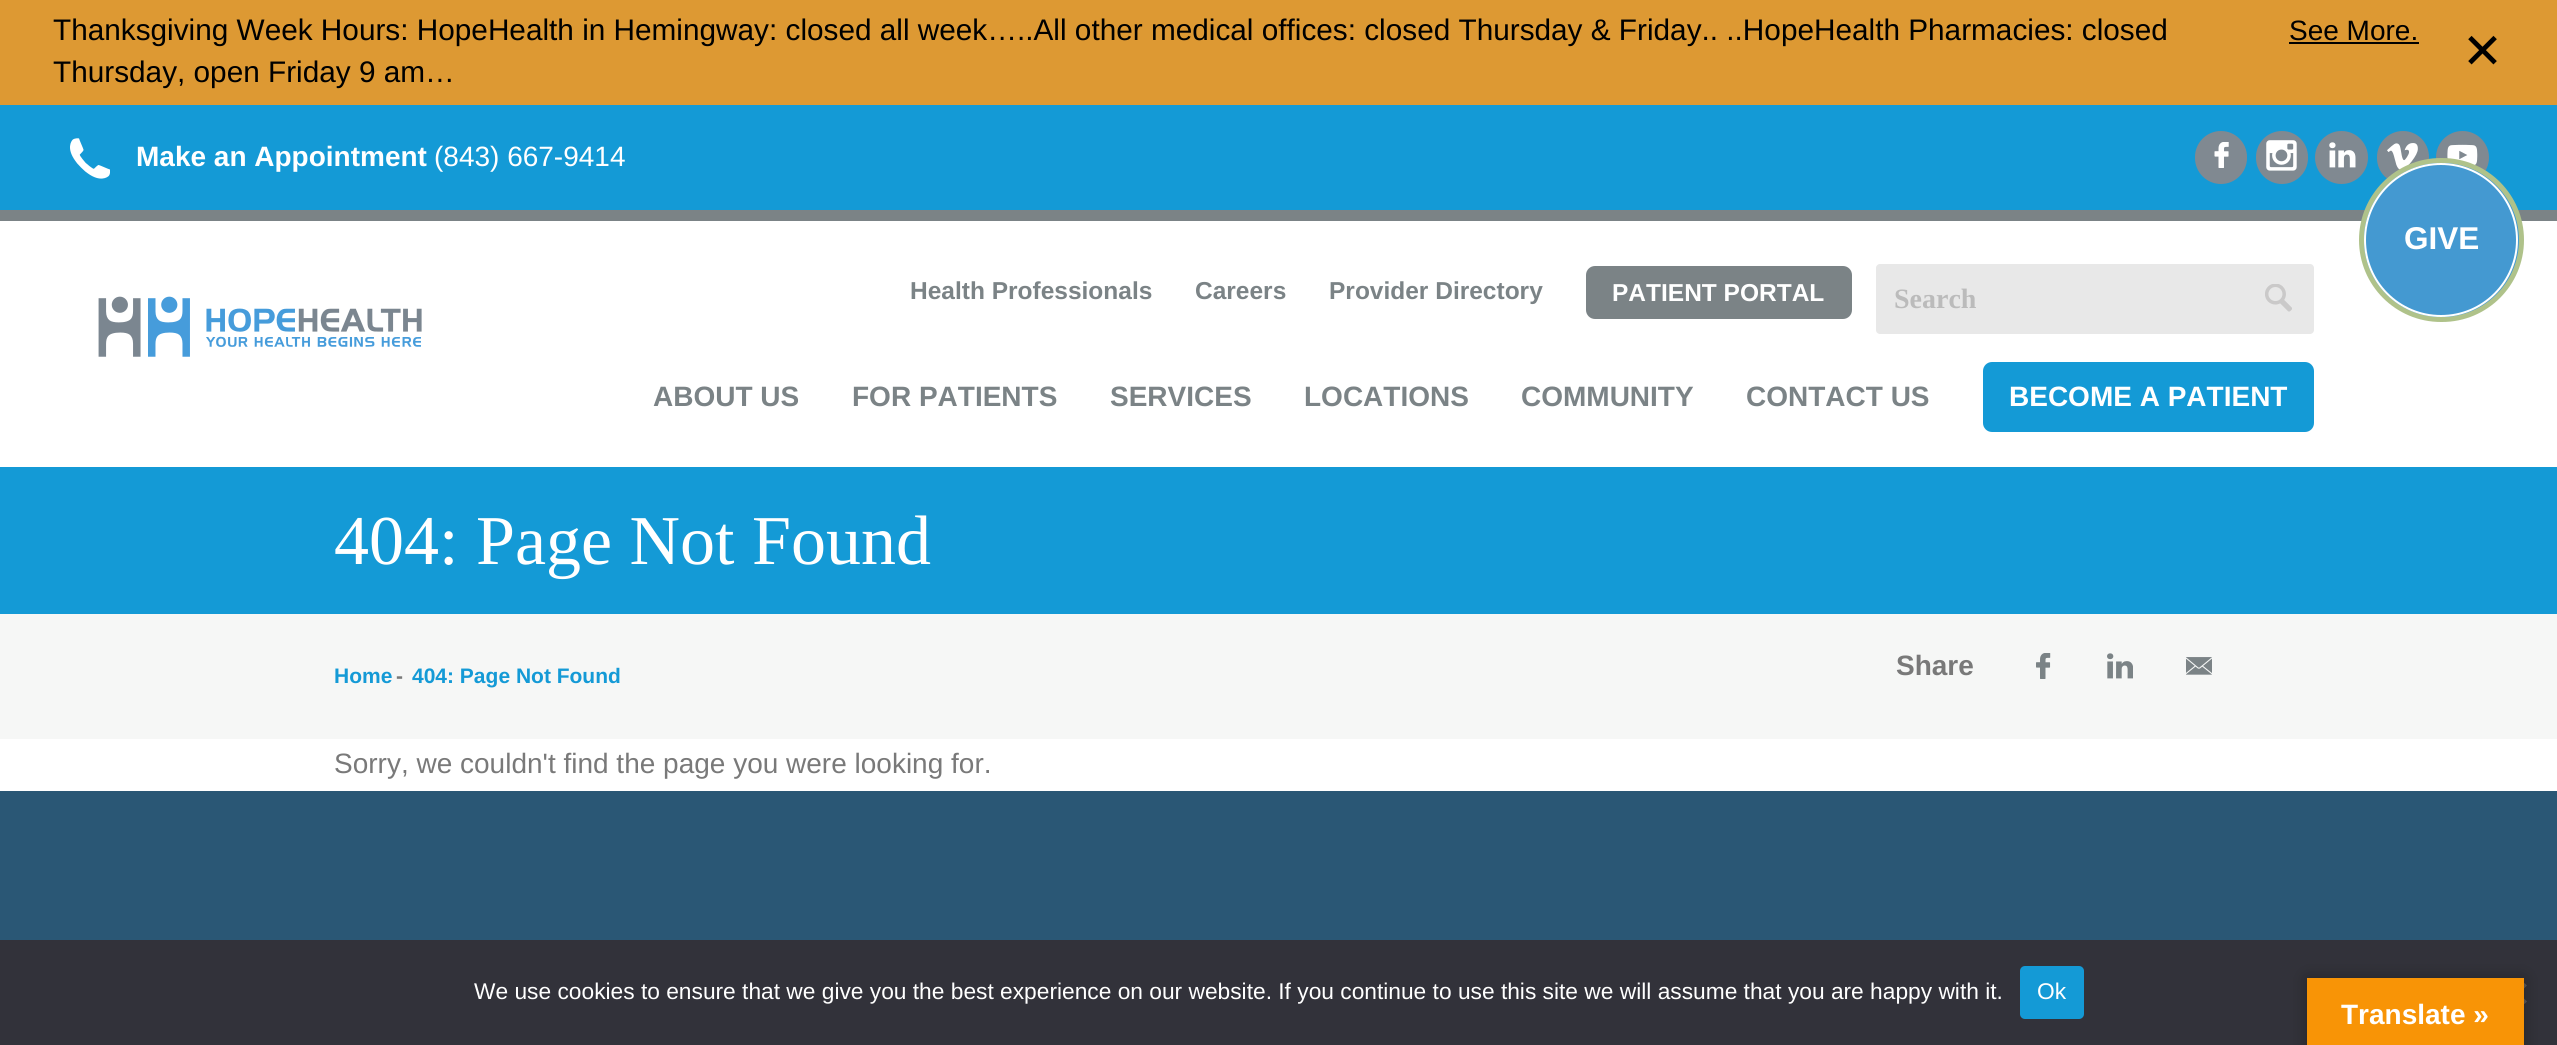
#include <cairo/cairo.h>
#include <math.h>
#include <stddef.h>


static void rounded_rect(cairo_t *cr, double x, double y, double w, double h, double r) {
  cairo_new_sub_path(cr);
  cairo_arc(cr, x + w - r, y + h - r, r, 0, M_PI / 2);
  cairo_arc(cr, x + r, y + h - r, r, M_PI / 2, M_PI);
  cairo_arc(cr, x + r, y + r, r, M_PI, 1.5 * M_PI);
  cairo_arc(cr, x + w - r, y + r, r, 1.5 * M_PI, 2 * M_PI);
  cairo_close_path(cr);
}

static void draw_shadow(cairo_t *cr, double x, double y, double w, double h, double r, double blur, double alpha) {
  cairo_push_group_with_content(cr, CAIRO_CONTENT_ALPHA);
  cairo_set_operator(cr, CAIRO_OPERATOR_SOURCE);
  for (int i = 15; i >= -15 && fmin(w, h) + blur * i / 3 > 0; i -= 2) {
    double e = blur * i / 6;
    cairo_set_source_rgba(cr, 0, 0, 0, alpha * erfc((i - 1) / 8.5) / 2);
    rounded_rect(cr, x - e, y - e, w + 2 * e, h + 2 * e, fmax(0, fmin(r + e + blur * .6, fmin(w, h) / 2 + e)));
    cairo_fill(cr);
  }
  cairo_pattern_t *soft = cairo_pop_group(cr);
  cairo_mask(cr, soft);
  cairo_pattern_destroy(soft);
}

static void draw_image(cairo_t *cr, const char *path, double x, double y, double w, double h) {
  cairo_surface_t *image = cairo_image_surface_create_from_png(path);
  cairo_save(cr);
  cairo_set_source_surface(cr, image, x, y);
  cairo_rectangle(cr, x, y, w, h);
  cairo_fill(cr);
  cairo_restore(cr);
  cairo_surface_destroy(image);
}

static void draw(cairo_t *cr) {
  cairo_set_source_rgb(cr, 1, 1, 1);
  cairo_paint(cr);
  cairo_set_source_rgb(cr, 221 / 255.0, 153 / 255.0, 51 / 255.0);
  cairo_rectangle(cr, 0, 0, 2557, 105);
  cairo_fill(cr);
  cairo_set_source_rgb(cr, 0, 0, 0);
  cairo_rectangle(cr, 2289, 42, 130, 2);
  cairo_fill(cr);
  cairo_set_source_rgb(cr, 20 / 255.0, 154 / 255.0, 214 / 255.0);
  cairo_rectangle(cr, 0, 105, 2557, 105);
  cairo_fill(cr);
  draw_image(cr, "images/1.png", 70, 138, 40, 41);
  cairo_set_source_rgb(cr, 128 / 255.0, 137 / 255.0, 145 / 255.0);
  rounded_rect(cr, 2195, 131, 52, 53, 26);
  cairo_fill(cr);
  draw_image(cr, "images/2.png", 2214, 142, 15, 26);
  rounded_rect(cr, 2256, 131, 52, 53, 26);
  cairo_fill(cr);
  draw_image(cr, "images/3.png", 2266, 140, 31, 31);
  cairo_arc(cr, 2341.5, 157.5, 26.5, 0, 2 * M_PI);
  cairo_fill(cr);
  draw_image(cr, "images/4.png", 2329, 142, 27, 26);
  rounded_rect(cr, 2377, 131, 52, 53, 26);
  cairo_fill(cr);
  draw_image(cr, "images/5.png", 2387, 143, 31, 27);
  cairo_arc(cr, 2462.5, 157.5, 26.5, 0, 2 * M_PI);
  cairo_fill(cr);
  draw_image(cr, "images/6.png", 2447, 144, 31, 21);
  cairo_set_source_rgb(cr, 123 / 255.0, 131 / 255.0, 134 / 255.0);
  cairo_rectangle(cr, 0, 210, 2557, 11);
  cairo_fill(cr);
  cairo_set_source_rgb(cr, 68 / 255.0, 153 / 255.0, 209 / 255.0);
  rounded_rect(cr, 2361.5, 160.5, 160, 159, 79.5);
  cairo_fill_preserve(cr);
  cairo_set_source_rgb(cr, 175 / 255.0, 194 / 255.0, 138 / 255.0);
  cairo_set_line_width(cr, 5);
  cairo_stroke(cr);
  cairo_arc(cr, 2441, 240, 76, 0, 2 * M_PI);
  cairo_set_source_rgb(cr, 1, 1, 1);
  cairo_set_line_width(cr, 2);
  cairo_stroke(cr);
  draw_image(cr, "images/7.png", 98, 296, 324, 61);
  cairo_set_source_rgb(cr, 123 / 255.0, 131 / 255.0, 134 / 255.0);
  rounded_rect(cr, 1586, 266, 266, 53, 9);
  cairo_fill(cr);
  cairo_set_source_rgb(cr, 232 / 255.0, 232 / 255.0, 232 / 255.0);
  rounded_rect(cr, 1876, 264, 438, 70, 4);
  cairo_fill(cr);
  draw_image(cr, "images/8.png", 2265, 284, 27, 28);
  cairo_set_source_rgb(cr, 20 / 255.0, 154 / 255.0, 214 / 255.0);
  rounded_rect(cr, 1983, 362, 331, 70, 9);
  cairo_fill(cr);
  cairo_rectangle(cr, 0, 467, 2557, 147);
  cairo_fill(cr);
  cairo_set_source_rgb(cr, 246 / 255.0, 247 / 255.0, 246 / 255.0);
  cairo_rectangle(cr, 0, 614, 2557, 125);
  cairo_fill(cr);
  draw_image(cr, "images/9.png", 2036, 653, 15, 26);
  draw_image(cr, "images/10.png", 2107, 653, 26, 26);
  draw_image(cr, "images/11.png", 2186, 657, 26, 18);
  cairo_set_source_rgb(cr, 42 / 255.0, 87 / 255.0, 117 / 255.0);
  cairo_rectangle(cr, 0, 791, 2557, 149);
  cairo_fill(cr);
  cairo_set_source_rgb(cr, 50 / 255.0, 50 / 255.0, 58 / 255.0);
  cairo_rectangle(cr, 0, 940, 2557, 105);
  cairo_fill(cr);
  cairo_set_source_rgb(cr, 20 / 255.0, 154 / 255.0, 214 / 255.0);
  rounded_rect(cr, 2020, 966, 64, 53, 5);
  cairo_fill(cr);
  cairo_set_source_rgb(cr, 89 / 255.0, 89 / 255.0, 93 / 255.0);
  cairo_new_path(cr);
  cairo_move_to(cr, 2524.5, 983);
  cairo_line_to(cr, 2527, 985.5);
  cairo_line_to(cr, 2508.5, 1004);
  cairo_line_to(cr, 2506, 1001.5);
  cairo_close_path(cr);
  cairo_fill(cr);
  cairo_new_path(cr);
  cairo_move_to(cr, 2506, 985.5);
  cairo_line_to(cr, 2508.5, 983);
  cairo_line_to(cr, 2527, 1001.5);
  cairo_line_to(cr, 2524.5, 1004);
  cairo_close_path(cr);
  cairo_fill(cr);
  cairo_set_source_rgb(cr, 0, 0, 0);
  draw_shadow(cr, 2307, 978, 217, 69, 0, 8, 0.3);
  cairo_set_source_rgb(cr, 248 / 255.0, 148 / 255.0, 6 / 255.0);
  cairo_rectangle(cr, 2307, 978, 217, 67);
  cairo_fill(cr);
  cairo_select_font_face(cr, "Liberation Sans", CAIRO_FONT_SLANT_NORMAL, CAIRO_FONT_WEIGHT_NORMAL);
  cairo_set_font_size(cr, 29.75);
  cairo_set_source_rgb(cr, 0, 0, 0);
  cairo_move_to(cr, 53, 40);
  cairo_show_text(cr, "Thanksgiving Week Hours: HopeHealth in Hemingway: closed all week…..All other medical offices: closed Thursday & Friday.. ..HopeHealth Pharmacies: closed");
  cairo_move_to(cr, 53, 82);
  cairo_show_text(cr, "Thursday, open Friday 9 am…");
  cairo_set_font_size(cr, 28);
  cairo_move_to(cr, 2289, 40);
  cairo_show_text(cr, "See More.");
  cairo_select_font_face(cr, "DejaVu Sans", CAIRO_FONT_SLANT_NORMAL, CAIRO_FONT_WEIGHT_NORMAL);
  cairo_set_font_size(cr, 49);
  cairo_move_to(cr, 2462, 68);
  cairo_show_text(cr, "✕");
  cairo_select_font_face(cr, "Liberation Sans", CAIRO_FONT_SLANT_NORMAL, CAIRO_FONT_WEIGHT_BOLD);
  cairo_set_font_size(cr, 28);
  cairo_set_source_rgb(cr, 1, 1, 1);
  cairo_move_to(cr, 136, 166);
  cairo_show_text(cr, "Make an Appointment");
  cairo_select_font_face(cr, "Liberation Sans", CAIRO_FONT_SLANT_NORMAL, CAIRO_FONT_WEIGHT_NORMAL);
  cairo_move_to(cr, 434, 166);
  cairo_show_text(cr, "(843) 667-9414");
  cairo_select_font_face(cr, "Liberation Sans", CAIRO_FONT_SLANT_NORMAL, CAIRO_FONT_WEIGHT_BOLD);
  cairo_set_font_size(cr, 31.5);
  cairo_move_to(cr, 2404, 249);
  cairo_show_text(cr, "GIVE");
  cairo_set_font_size(cr, 24.5);
  cairo_set_source_rgb(cr, 123 / 255.0, 131 / 255.0, 134 / 255.0);
  cairo_move_to(cr, 910, 299);
  cairo_show_text(cr, "Health Professionals");
  cairo_move_to(cr, 1195, 299);
  cairo_show_text(cr, "Careers");
  cairo_move_to(cr, 1329, 299);
  cairo_show_text(cr, "Provider Directory");
  cairo_set_source_rgb(cr, 1, 1, 1);
  cairo_move_to(cr, 1612, 301);
  cairo_show_text(cr, "PATIENT PORTAL");
  cairo_select_font_face(cr, "Liberation Serif", CAIRO_FONT_SLANT_NORMAL, CAIRO_FONT_WEIGHT_BOLD);
  cairo_set_font_size(cr, 28);
  cairo_set_source_rgb(cr, 187 / 255.0, 187 / 255.0, 187 / 255.0);
  cairo_move_to(cr, 1894, 308);
  cairo_show_text(cr, "Search");
  cairo_select_font_face(cr, "Liberation Sans", CAIRO_FONT_SLANT_NORMAL, CAIRO_FONT_WEIGHT_BOLD);
  cairo_set_source_rgb(cr, 123 / 255.0, 131 / 255.0, 134 / 255.0);
  cairo_move_to(cr, 653, 406);
  cairo_show_text(cr, "ABOUT US");
  cairo_move_to(cr, 852, 406);
  cairo_show_text(cr, "FOR PATIENTS");
  cairo_move_to(cr, 1110, 406);
  cairo_show_text(cr, "SERVICES");
  cairo_move_to(cr, 1304, 406);
  cairo_show_text(cr, "LOCATIONS");
  cairo_move_to(cr, 1521, 406);
  cairo_show_text(cr, "COMMUNITY");
  cairo_move_to(cr, 1746, 406);
  cairo_show_text(cr, "CONTACT US");
  cairo_set_source_rgb(cr, 1, 1, 1);
  cairo_move_to(cr, 2009, 406);
  cairo_show_text(cr, "BECOME A PATIENT");
  cairo_select_font_face(cr, "Liberation Serif", CAIRO_FONT_SLANT_NORMAL, CAIRO_FONT_WEIGHT_NORMAL);
  cairo_set_font_size(cr, 70);
  cairo_move_to(cr, 334, 564);
  cairo_show_text(cr, "404: Page Not Found");
  cairo_select_font_face(cr, "Liberation Sans", CAIRO_FONT_SLANT_NORMAL, CAIRO_FONT_WEIGHT_BOLD);
  cairo_set_font_size(cr, 21);
  cairo_set_source_rgb(cr, 20 / 255.0, 154 / 255.0, 214 / 255.0);
  cairo_move_to(cr, 334, 683);
  cairo_show_text(cr, "Home");
  cairo_set_source_rgb(cr, 121 / 255.0, 121 / 255.0, 121 / 255.0);
  cairo_move_to(cr, 396, 683);
  cairo_show_text(cr, "-");
  cairo_set_source_rgb(cr, 20 / 255.0, 154 / 255.0, 214 / 255.0);
  cairo_move_to(cr, 412, 683);
  cairo_show_text(cr, "404: Page Not Found");
  cairo_set_font_size(cr, 28);
  cairo_set_source_rgb(cr, 121 / 255.0, 121 / 255.0, 121 / 255.0);
  cairo_move_to(cr, 1896, 675);
  cairo_show_text(cr, "Share");
  cairo_select_font_face(cr, "Liberation Sans", CAIRO_FONT_SLANT_NORMAL, CAIRO_FONT_WEIGHT_NORMAL);
  cairo_move_to(cr, 334, 773);
  cairo_show_text(cr, "Sorry, we couldn't find the page you were looking for.");
  cairo_set_font_size(cr, 22.75);
  cairo_set_source_rgb(cr, 1, 1, 1);
  cairo_move_to(cr, 474, 999);
  cairo_show_text(cr, "We use cookies to ensure that we give you the best experience on our website. If you continue to use this site we will assume that you are happy with it.");
  cairo_move_to(cr, 2037, 999);
  cairo_show_text(cr, "Ok");
  cairo_select_font_face(cr, "Liberation Sans", CAIRO_FONT_SLANT_NORMAL, CAIRO_FONT_WEIGHT_BOLD);
  cairo_set_font_size(cr, 28);
  cairo_move_to(cr, 2341, 1024);
  cairo_show_text(cr, "Translate »");
}

int main(void) {
  cairo_surface_t *surface = cairo_image_surface_create(CAIRO_FORMAT_RGB24, 2557, 1045);
  cairo_t *cr = cairo_create(surface);
  cairo_font_options_t *options = cairo_font_options_create();
  cairo_font_options_set_hint_metrics(options, CAIRO_HINT_METRICS_OFF);
  cairo_font_options_set_hint_style(options, CAIRO_HINT_STYLE_NONE);
  cairo_set_font_options(cr, options);
  cairo_set_miter_limit(cr, 4);
  draw(cr);
  cairo_surface_write_to_png(surface, "out.png");
  cairo_font_options_destroy(options);
  cairo_destroy(cr);
  cairo_surface_destroy(surface);
  return 0;
}
